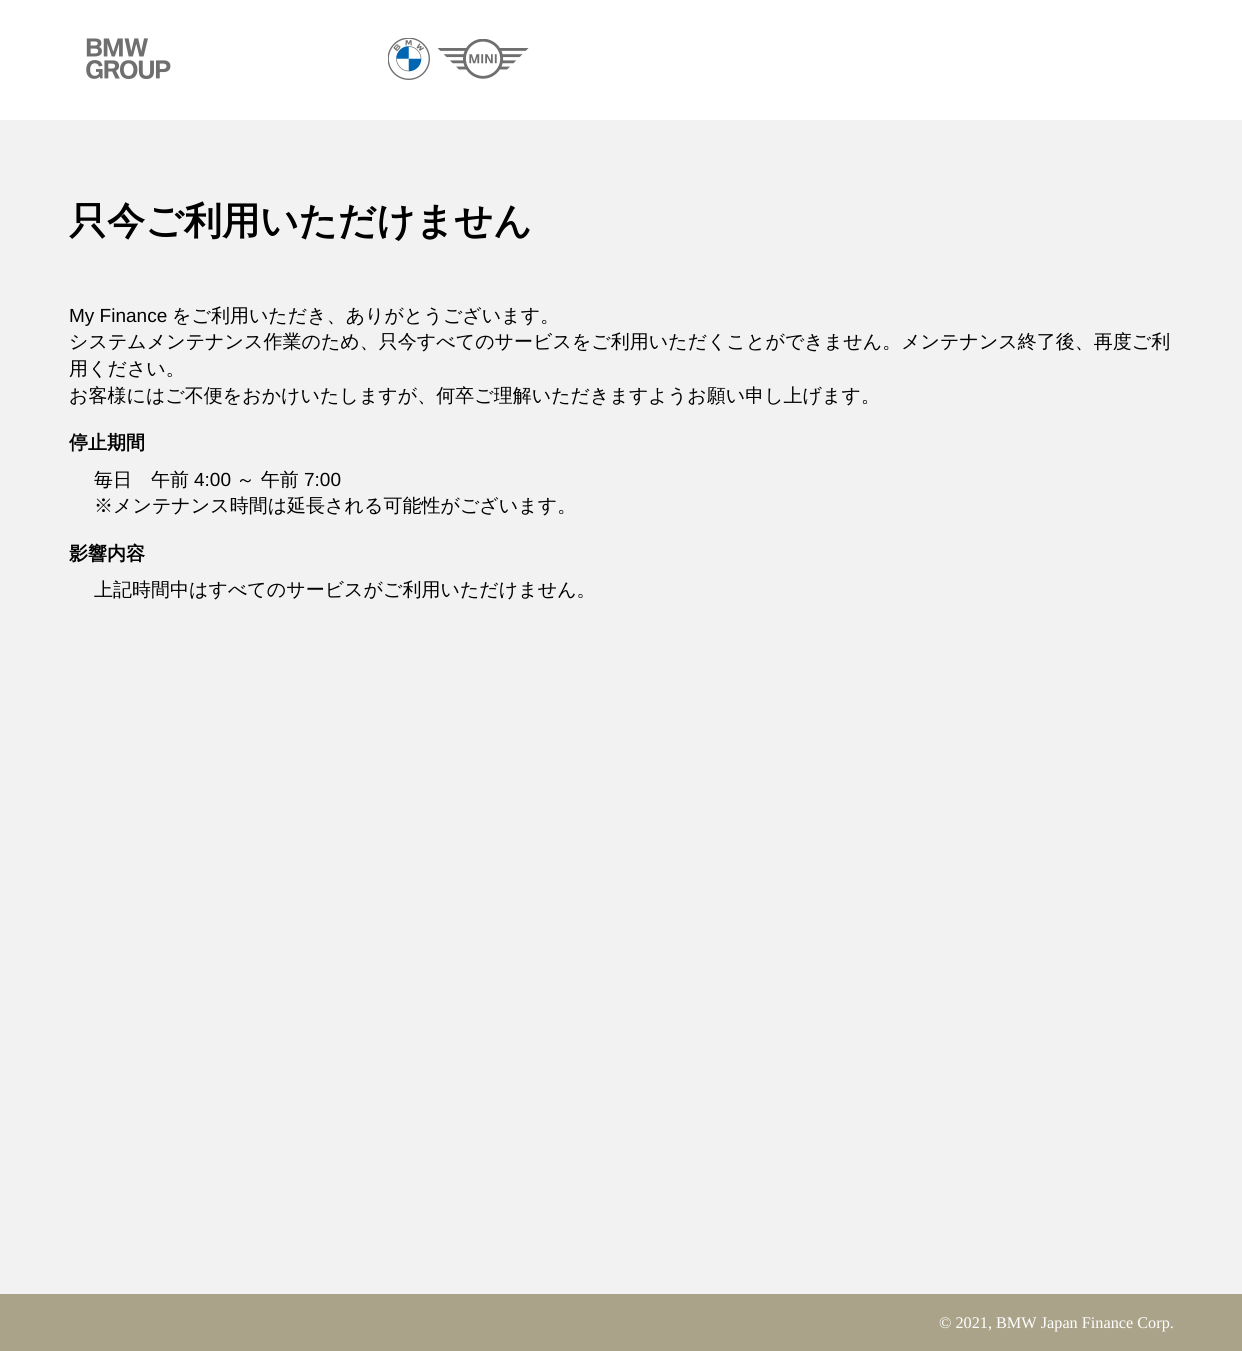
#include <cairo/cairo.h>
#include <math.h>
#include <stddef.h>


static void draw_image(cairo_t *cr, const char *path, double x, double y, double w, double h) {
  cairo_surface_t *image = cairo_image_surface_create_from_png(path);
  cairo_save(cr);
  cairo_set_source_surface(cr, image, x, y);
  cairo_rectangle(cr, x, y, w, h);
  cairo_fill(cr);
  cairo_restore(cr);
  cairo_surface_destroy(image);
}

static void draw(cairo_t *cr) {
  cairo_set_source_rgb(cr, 242 / 255.0, 242 / 255.0, 242 / 255.0);
  cairo_paint(cr);
  cairo_set_source_rgb(cr, 1, 1, 1);
  cairo_rectangle(cr, 0, 0, 1242, 120);
  cairo_fill(cr);
  draw_image(cr, "images/1.png", 86, 38, 85, 41);
  draw_image(cr, "images/2.png", 388, 38, 42, 42);
  draw_image(cr, "images/3.png", 438, 39, 91, 40);
  cairo_set_source_rgb(cr, 170 / 255.0, 163 / 255.0, 138 / 255.0);
  cairo_rectangle(cr, 0, 1294, 1242, 57);
  cairo_fill(cr);
  cairo_select_font_face(cr, "WenQuanYi Zen Hei", CAIRO_FONT_SLANT_NORMAL, CAIRO_FONT_WEIGHT_BOLD);
  cairo_set_font_size(cr, 38);
  cairo_set_source_rgb(cr, 0, 0, 0);
  cairo_move_to(cr, 69, 234);
  cairo_show_text(cr, "只今ご利用いただけません");
  cairo_select_font_face(cr, "Liberation Sans", CAIRO_FONT_SLANT_NORMAL, CAIRO_FONT_WEIGHT_NORMAL);
  cairo_set_font_size(cr, 19);
  cairo_move_to(cr, 69, 322);
  cairo_show_text(cr, "My Finance");
  cairo_select_font_face(cr, "WenQuanYi Zen Hei Medium", CAIRO_FONT_SLANT_NORMAL, CAIRO_FONT_WEIGHT_NORMAL);
  cairo_move_to(cr, 172, 322);
  cairo_show_text(cr, "をご利用いただき、ありがとうございます。");
  cairo_move_to(cr, 69, 348);
  cairo_show_text(cr, "システムメンテナンス作業のため、只今すべてのサービスをご利用いただくことができません。メンテナンス終了後、再度ご利");
  cairo_move_to(cr, 69, 375);
  cairo_show_text(cr, "用ください。");
  cairo_move_to(cr, 69, 402);
  cairo_show_text(cr, "お客様にはご不便をおかけいたしますが、何卒ご理解いただきますようお願い申し上げます。");
  cairo_select_font_face(cr, "WenQuanYi Zen Hei", CAIRO_FONT_SLANT_NORMAL, CAIRO_FONT_WEIGHT_BOLD);
  cairo_move_to(cr, 69, 449);
  cairo_show_text(cr, "停止期間");
  cairo_select_font_face(cr, "WenQuanYi Zen Hei Medium", CAIRO_FONT_SLANT_NORMAL, CAIRO_FONT_WEIGHT_NORMAL);
  cairo_move_to(cr, 94, 486);
  cairo_show_text(cr, "毎日　午前");
  cairo_select_font_face(cr, "Liberation Sans", CAIRO_FONT_SLANT_NORMAL, CAIRO_FONT_WEIGHT_NORMAL);
  cairo_move_to(cr, 194, 486);
  cairo_show_text(cr, "4:00");
  cairo_select_font_face(cr, "WenQuanYi Zen Hei Medium", CAIRO_FONT_SLANT_NORMAL, CAIRO_FONT_WEIGHT_NORMAL);
  cairo_move_to(cr, 236, 486);
  cairo_show_text(cr, "～ 午前");
  cairo_select_font_face(cr, "Liberation Sans", CAIRO_FONT_SLANT_NORMAL, CAIRO_FONT_WEIGHT_NORMAL);
  cairo_move_to(cr, 304, 486);
  cairo_show_text(cr, "7:00");
  cairo_select_font_face(cr, "WenQuanYi Zen Hei Medium", CAIRO_FONT_SLANT_NORMAL, CAIRO_FONT_WEIGHT_NORMAL);
  cairo_move_to(cr, 94, 512);
  cairo_show_text(cr, "※メンテナンス時間は延長される可能性がございます。");
  cairo_select_font_face(cr, "WenQuanYi Zen Hei", CAIRO_FONT_SLANT_NORMAL, CAIRO_FONT_WEIGHT_BOLD);
  cairo_move_to(cr, 69, 560);
  cairo_show_text(cr, "影響内容");
  cairo_select_font_face(cr, "WenQuanYi Zen Hei Medium", CAIRO_FONT_SLANT_NORMAL, CAIRO_FONT_WEIGHT_NORMAL);
  cairo_move_to(cr, 94, 596);
  cairo_show_text(cr, "上記時間中はすべてのサービスがご利用いただけません。");
  cairo_select_font_face(cr, "Liberation Serif", CAIRO_FONT_SLANT_NORMAL, CAIRO_FONT_WEIGHT_NORMAL);
  cairo_set_font_size(cr, 16.25);
  cairo_set_source_rgb(cr, 1, 1, 1);
  cairo_move_to(cr, 939, 1328);
  cairo_show_text(cr, "© 2021, BMW Japan Finance Corp.");
}

int main(void) {
  cairo_surface_t *surface = cairo_image_surface_create(CAIRO_FORMAT_RGB24, 1242, 1351);
  cairo_t *cr = cairo_create(surface);
  cairo_font_options_t *options = cairo_font_options_create();
  cairo_font_options_set_hint_metrics(options, CAIRO_HINT_METRICS_OFF);
  cairo_font_options_set_hint_style(options, CAIRO_HINT_STYLE_NONE);
  cairo_set_font_options(cr, options);
  cairo_set_miter_limit(cr, 4);
  draw(cr);
  cairo_surface_write_to_png(surface, "out.png");
  cairo_font_options_destroy(options);
  cairo_destroy(cr);
  cairo_surface_destroy(surface);
  return 0;
}
